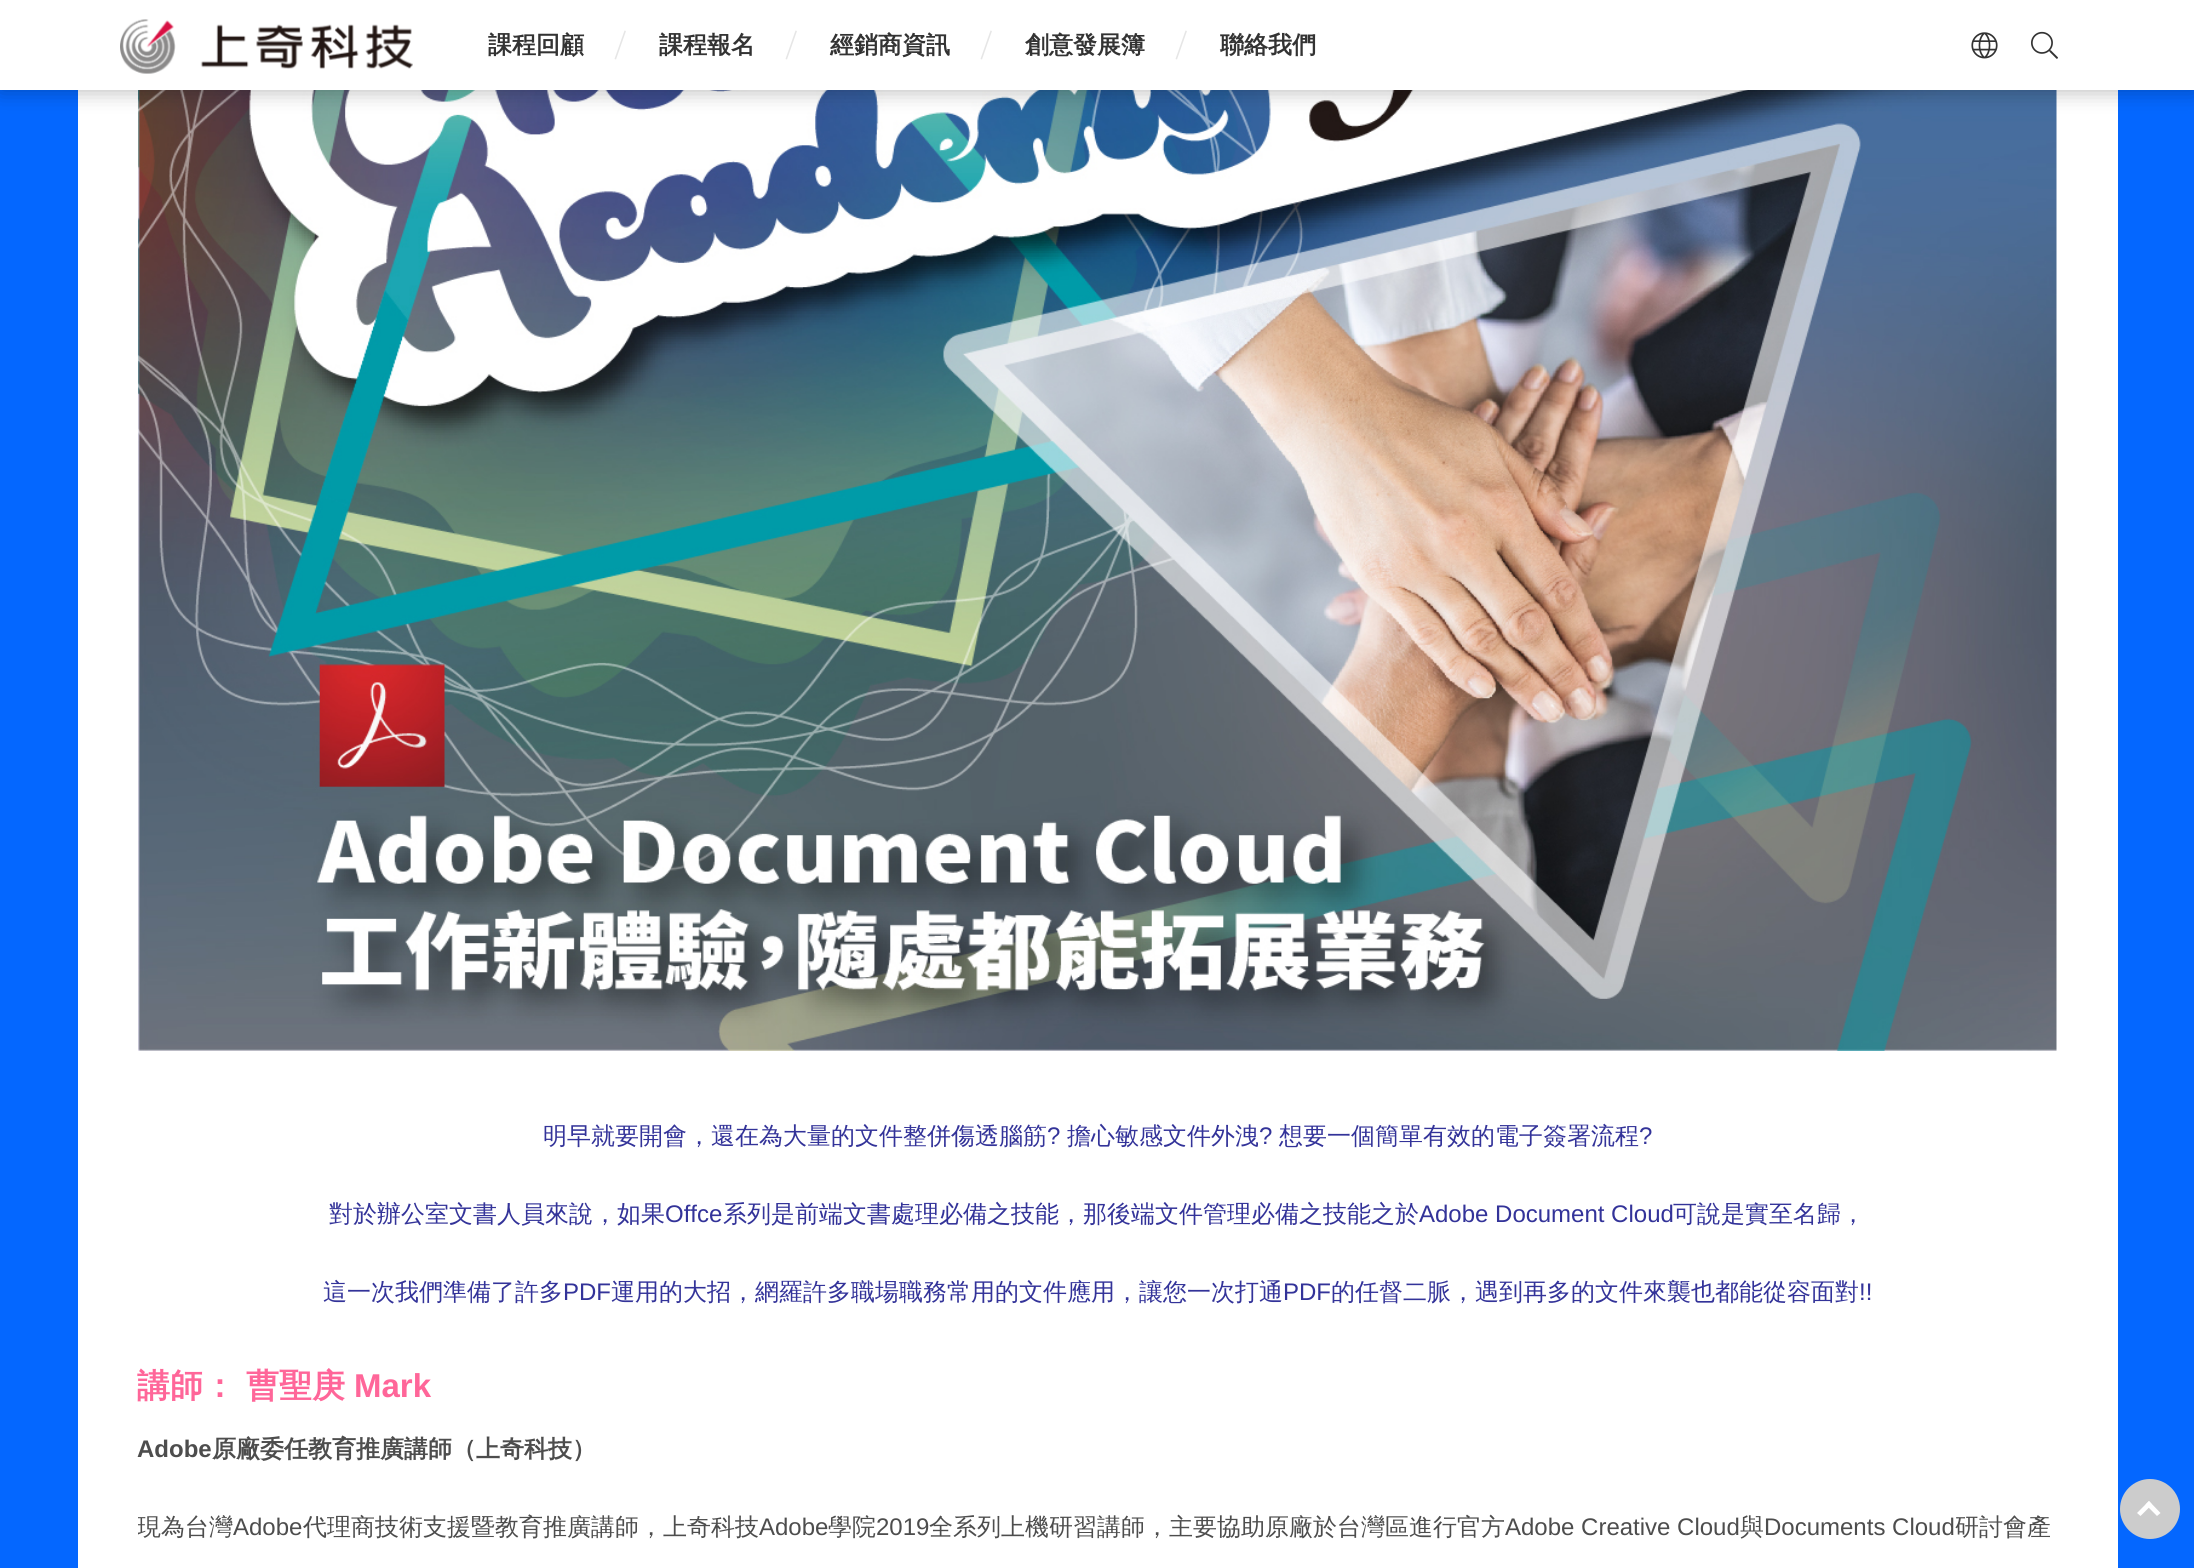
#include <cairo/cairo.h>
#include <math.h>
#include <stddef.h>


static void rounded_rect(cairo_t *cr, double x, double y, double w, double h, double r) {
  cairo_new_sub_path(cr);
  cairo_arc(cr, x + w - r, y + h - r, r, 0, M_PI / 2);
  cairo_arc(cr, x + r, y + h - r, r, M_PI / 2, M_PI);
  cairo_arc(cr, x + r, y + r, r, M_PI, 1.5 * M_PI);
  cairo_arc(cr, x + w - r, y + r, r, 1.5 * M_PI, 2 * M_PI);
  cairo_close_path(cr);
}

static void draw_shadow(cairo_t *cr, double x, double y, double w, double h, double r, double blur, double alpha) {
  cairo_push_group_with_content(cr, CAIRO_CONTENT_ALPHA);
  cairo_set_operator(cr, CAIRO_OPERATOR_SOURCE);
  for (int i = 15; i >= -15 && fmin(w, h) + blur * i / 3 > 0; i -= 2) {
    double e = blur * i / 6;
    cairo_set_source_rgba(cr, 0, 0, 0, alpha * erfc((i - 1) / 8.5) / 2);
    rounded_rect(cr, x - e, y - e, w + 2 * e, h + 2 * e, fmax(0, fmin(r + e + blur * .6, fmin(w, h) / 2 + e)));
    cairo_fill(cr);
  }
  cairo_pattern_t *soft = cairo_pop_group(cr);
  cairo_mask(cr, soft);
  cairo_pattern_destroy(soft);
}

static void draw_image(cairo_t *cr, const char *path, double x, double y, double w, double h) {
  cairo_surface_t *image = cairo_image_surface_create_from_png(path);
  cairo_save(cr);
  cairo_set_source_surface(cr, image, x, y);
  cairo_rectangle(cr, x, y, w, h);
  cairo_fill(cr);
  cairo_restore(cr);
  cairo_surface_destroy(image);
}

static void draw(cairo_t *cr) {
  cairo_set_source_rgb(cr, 4 / 255.0, 103 / 255.0, 1);
  cairo_paint(cr);
  cairo_set_source_rgb(cr, 1, 1, 1);
  cairo_rectangle(cr, 78, 90, 2040, 1478);
  cairo_fill(cr);
  draw_image(cr, "images/4.png", 138, 90, 1919, 961);
  cairo_set_source_rgb(cr, 0, 0, 0);
  draw_shadow(cr, 0, 0, 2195, 90, 0, 11, 0.3);
  cairo_set_source_rgb(cr, 1, 1, 1);
  cairo_rectangle(cr, 0, 0, 2194, 90);
  cairo_fill(cr);
  draw_image(cr, "images/1.png", 120, 19, 293, 55);
  cairo_set_source_rgb(cr, 230 / 255.0, 230 / 255.0, 230 / 255.0);
  cairo_new_path(cr);
  cairo_move_to(cr, 624.5, 30.5);
  cairo_line_to(cr, 626, 31);
  cairo_line_to(cr, 616, 59.5);
  cairo_line_to(cr, 614.5, 59);
  cairo_close_path(cr);
  cairo_fill(cr);
  cairo_new_path(cr);
  cairo_move_to(cr, 795.5, 30.5);
  cairo_line_to(cr, 797, 31);
  cairo_line_to(cr, 787, 59.5);
  cairo_line_to(cr, 785.5, 59);
  cairo_close_path(cr);
  cairo_fill(cr);
  cairo_new_path(cr);
  cairo_move_to(cr, 990.5, 30.5);
  cairo_line_to(cr, 992, 31);
  cairo_line_to(cr, 982, 59.5);
  cairo_line_to(cr, 980.5, 59);
  cairo_close_path(cr);
  cairo_fill(cr);
  cairo_new_path(cr);
  cairo_move_to(cr, 1185.5, 30.5);
  cairo_line_to(cr, 1187, 31);
  cairo_line_to(cr, 1177, 59.5);
  cairo_line_to(cr, 1175.5, 59);
  cairo_close_path(cr);
  cairo_fill(cr);
  draw_image(cr, "images/2.png", 1971, 32, 27, 27);
  draw_image(cr, "images/3.png", 2031, 31, 27, 28);
  cairo_set_source_rgb(cr, 204 / 255.0, 204 / 255.0, 204 / 255.0);
  cairo_arc(cr, 2150, 1509, 30, 0, 2 * M_PI);
  cairo_fill(cr);
  cairo_set_source_rgb(cr, 1, 1, 1);
  cairo_new_path(cr);
  cairo_move_to(cr, 2149, 1501);
  cairo_line_to(cr, 2160.5, 1513);
  cairo_line_to(cr, 2157, 1516);
  cairo_line_to(cr, 2145.5, 1504.5);
  cairo_close_path(cr);
  cairo_fill(cr);
  cairo_new_path(cr);
  cairo_move_to(cr, 2149, 1501);
  cairo_line_to(cr, 2152, 1504.5);
  cairo_line_to(cr, 2140.5, 1516);
  cairo_line_to(cr, 2137, 1513);
  cairo_close_path(cr);
  cairo_fill(cr);
  cairo_select_font_face(cr, "WenQuanYi Zen Hei", CAIRO_FONT_SLANT_NORMAL, CAIRO_FONT_WEIGHT_BOLD);
  cairo_set_font_size(cr, 24);
  cairo_set_source_rgb(cr, 51 / 255.0, 51 / 255.0, 51 / 255.0);
  cairo_move_to(cr, 488, 53);
  cairo_show_text(cr, "課程回顧");
  cairo_move_to(cr, 659, 53);
  cairo_show_text(cr, "課程報名");
  cairo_move_to(cr, 830, 53);
  cairo_show_text(cr, "經銷商資訊");
  cairo_move_to(cr, 1025, 53);
  cairo_show_text(cr, "創意發展簿");
  cairo_move_to(cr, 1220, 53);
  cairo_show_text(cr, "聯絡我們");
  cairo_select_font_face(cr, "WenQuanYi Zen Hei Medium", CAIRO_FONT_SLANT_NORMAL, CAIRO_FONT_WEIGHT_NORMAL);
  cairo_set_source_rgb(cr, 51 / 255.0, 51 / 255.0, 153 / 255.0);
  cairo_move_to(cr, 543, 1144);
  cairo_show_text(cr, "明早就要開會，還在為大量的文件整併傷透腦筋");
  cairo_select_font_face(cr, "Liberation Sans", CAIRO_FONT_SLANT_NORMAL, CAIRO_FONT_WEIGHT_NORMAL);
  cairo_move_to(cr, 1047, 1144);
  cairo_show_text(cr, "?");
  cairo_select_font_face(cr, "WenQuanYi Zen Hei Medium", CAIRO_FONT_SLANT_NORMAL, CAIRO_FONT_WEIGHT_NORMAL);
  cairo_move_to(cr, 1067, 1144);
  cairo_show_text(cr, "擔心敏感文件外洩");
  cairo_select_font_face(cr, "Liberation Sans", CAIRO_FONT_SLANT_NORMAL, CAIRO_FONT_WEIGHT_NORMAL);
  cairo_move_to(cr, 1259, 1144);
  cairo_show_text(cr, "?");
  cairo_select_font_face(cr, "WenQuanYi Zen Hei Medium", CAIRO_FONT_SLANT_NORMAL, CAIRO_FONT_WEIGHT_NORMAL);
  cairo_move_to(cr, 1279, 1144);
  cairo_show_text(cr, "想要一個簡單有效的電子簽署流程");
  cairo_select_font_face(cr, "Liberation Sans", CAIRO_FONT_SLANT_NORMAL, CAIRO_FONT_WEIGHT_NORMAL);
  cairo_move_to(cr, 1639, 1144);
  cairo_show_text(cr, "?");
  cairo_select_font_face(cr, "WenQuanYi Zen Hei Medium", CAIRO_FONT_SLANT_NORMAL, CAIRO_FONT_WEIGHT_NORMAL);
  cairo_move_to(cr, 329, 1222);
  cairo_show_text(cr, "對於辦公室文書人員來說，如果");
  cairo_select_font_face(cr, "Liberation Sans", CAIRO_FONT_SLANT_NORMAL, CAIRO_FONT_WEIGHT_NORMAL);
  cairo_move_to(cr, 665, 1222);
  cairo_show_text(cr, "Offce");
  cairo_select_font_face(cr, "WenQuanYi Zen Hei Medium", CAIRO_FONT_SLANT_NORMAL, CAIRO_FONT_WEIGHT_NORMAL);
  cairo_move_to(cr, 723, 1222);
  cairo_show_text(cr, "系列是前端文書處理必備之技能，那後端文件管理必備之技能之於");
  cairo_select_font_face(cr, "Liberation Sans", CAIRO_FONT_SLANT_NORMAL, CAIRO_FONT_WEIGHT_NORMAL);
  cairo_move_to(cr, 1419, 1222);
  cairo_show_text(cr, "Adobe Document Cloud");
  cairo_select_font_face(cr, "WenQuanYi Zen Hei Medium", CAIRO_FONT_SLANT_NORMAL, CAIRO_FONT_WEIGHT_NORMAL);
  cairo_move_to(cr, 1673, 1222);
  cairo_show_text(cr, "可說是實至名歸，");
  cairo_move_to(cr, 323, 1300);
  cairo_show_text(cr, "這一次我們準備了許多");
  cairo_select_font_face(cr, "Liberation Sans", CAIRO_FONT_SLANT_NORMAL, CAIRO_FONT_WEIGHT_NORMAL);
  cairo_move_to(cr, 563, 1300);
  cairo_show_text(cr, "PDF");
  cairo_select_font_face(cr, "WenQuanYi Zen Hei Medium", CAIRO_FONT_SLANT_NORMAL, CAIRO_FONT_WEIGHT_NORMAL);
  cairo_move_to(cr, 611, 1300);
  cairo_show_text(cr, "運用的大招，網羅許多職場職務常用的文件應用，讓您一次打通");
  cairo_select_font_face(cr, "Liberation Sans", CAIRO_FONT_SLANT_NORMAL, CAIRO_FONT_WEIGHT_NORMAL);
  cairo_move_to(cr, 1283, 1300);
  cairo_show_text(cr, "PDF");
  cairo_select_font_face(cr, "WenQuanYi Zen Hei Medium", CAIRO_FONT_SLANT_NORMAL, CAIRO_FONT_WEIGHT_NORMAL);
  cairo_move_to(cr, 1331, 1300);
  cairo_show_text(cr, "的任督二脈，遇到再多的文件來襲也都能從容面對");
  cairo_select_font_face(cr, "Liberation Sans", CAIRO_FONT_SLANT_NORMAL, CAIRO_FONT_WEIGHT_NORMAL);
  cairo_move_to(cr, 1859, 1300);
  cairo_show_text(cr, "!!");
  cairo_select_font_face(cr, "WenQuanYi Zen Hei", CAIRO_FONT_SLANT_NORMAL, CAIRO_FONT_WEIGHT_BOLD);
  cairo_set_font_size(cr, 33);
  cairo_set_source_rgb(cr, 1, 102 / 255.0, 153 / 255.0);
  cairo_move_to(cr, 137, 1397);
  cairo_show_text(cr, "講師： 曹聖庚");
  cairo_select_font_face(cr, "Liberation Sans", CAIRO_FONT_SLANT_NORMAL, CAIRO_FONT_WEIGHT_BOLD);
  cairo_move_to(cr, 354, 1397);
  cairo_show_text(cr, "Mark");
  cairo_set_font_size(cr, 24);
  cairo_set_source_rgb(cr, 77 / 255.0, 77 / 255.0, 77 / 255.0);
  cairo_move_to(cr, 137, 1457);
  cairo_show_text(cr, "Adobe");
  cairo_select_font_face(cr, "WenQuanYi Zen Hei", CAIRO_FONT_SLANT_NORMAL, CAIRO_FONT_WEIGHT_BOLD);
  cairo_move_to(cr, 212, 1457);
  cairo_show_text(cr, "原廠委任教育推廣講師（上奇科技）");
  cairo_save(cr);
  cairo_rectangle(cr, 138, 1362, 1920, 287);
  cairo_clip(cr);
  cairo_select_font_face(cr, "WenQuanYi Zen Hei Medium", CAIRO_FONT_SLANT_NORMAL, CAIRO_FONT_WEIGHT_NORMAL);
  cairo_move_to(cr, 137, 1535);
  cairo_show_text(cr, "現為台灣");
  cairo_restore(cr);
  cairo_select_font_face(cr, "Liberation Sans", CAIRO_FONT_SLANT_NORMAL, CAIRO_FONT_WEIGHT_NORMAL);
  cairo_move_to(cr, 233, 1535);
  cairo_show_text(cr, "Adobe");
  cairo_select_font_face(cr, "WenQuanYi Zen Hei Medium", CAIRO_FONT_SLANT_NORMAL, CAIRO_FONT_WEIGHT_NORMAL);
  cairo_move_to(cr, 303, 1535);
  cairo_show_text(cr, "代理商技術支援暨教育推廣講師，上奇科技");
  cairo_select_font_face(cr, "Liberation Sans", CAIRO_FONT_SLANT_NORMAL, CAIRO_FONT_WEIGHT_NORMAL);
  cairo_move_to(cr, 759, 1535);
  cairo_show_text(cr, "Adobe");
  cairo_select_font_face(cr, "WenQuanYi Zen Hei Medium", CAIRO_FONT_SLANT_NORMAL, CAIRO_FONT_WEIGHT_NORMAL);
  cairo_move_to(cr, 828, 1535);
  cairo_show_text(cr, "學院");
  cairo_select_font_face(cr, "Liberation Sans", CAIRO_FONT_SLANT_NORMAL, CAIRO_FONT_WEIGHT_NORMAL);
  cairo_move_to(cr, 876, 1535);
  cairo_show_text(cr, "2019");
  cairo_select_font_face(cr, "WenQuanYi Zen Hei Medium", CAIRO_FONT_SLANT_NORMAL, CAIRO_FONT_WEIGHT_NORMAL);
  cairo_move_to(cr, 929, 1535);
  cairo_show_text(cr, "全系列上機研習講師，主要協助原廠於台灣區進行官方");
  cairo_select_font_face(cr, "Liberation Sans", CAIRO_FONT_SLANT_NORMAL, CAIRO_FONT_WEIGHT_NORMAL);
  cairo_move_to(cr, 1505, 1535);
  cairo_show_text(cr, "Adobe Creative Cloud");
  cairo_select_font_face(cr, "WenQuanYi Zen Hei Medium", CAIRO_FONT_SLANT_NORMAL, CAIRO_FONT_WEIGHT_NORMAL);
  cairo_move_to(cr, 1740, 1535);
  cairo_show_text(cr, "與");
  cairo_select_font_face(cr, "Liberation Sans", CAIRO_FONT_SLANT_NORMAL, CAIRO_FONT_WEIGHT_NORMAL);
  cairo_move_to(cr, 1764, 1535);
  cairo_show_text(cr, "Documents Cloud");
  cairo_select_font_face(cr, "WenQuanYi Zen Hei Medium", CAIRO_FONT_SLANT_NORMAL, CAIRO_FONT_WEIGHT_NORMAL);
  cairo_move_to(cr, 1955, 1535);
  cairo_show_text(cr, "研討會產");
}

int main(void) {
  cairo_surface_t *surface = cairo_image_surface_create(CAIRO_FORMAT_RGB24, 2194, 1568);
  cairo_t *cr = cairo_create(surface);
  cairo_font_options_t *options = cairo_font_options_create();
  cairo_font_options_set_hint_metrics(options, CAIRO_HINT_METRICS_OFF);
  cairo_font_options_set_hint_style(options, CAIRO_HINT_STYLE_NONE);
  cairo_set_font_options(cr, options);
  cairo_set_miter_limit(cr, 4);
  draw(cr);
  cairo_surface_write_to_png(surface, "out.png");
  cairo_font_options_destroy(options);
  cairo_destroy(cr);
  cairo_surface_destroy(surface);
  return 0;
}
